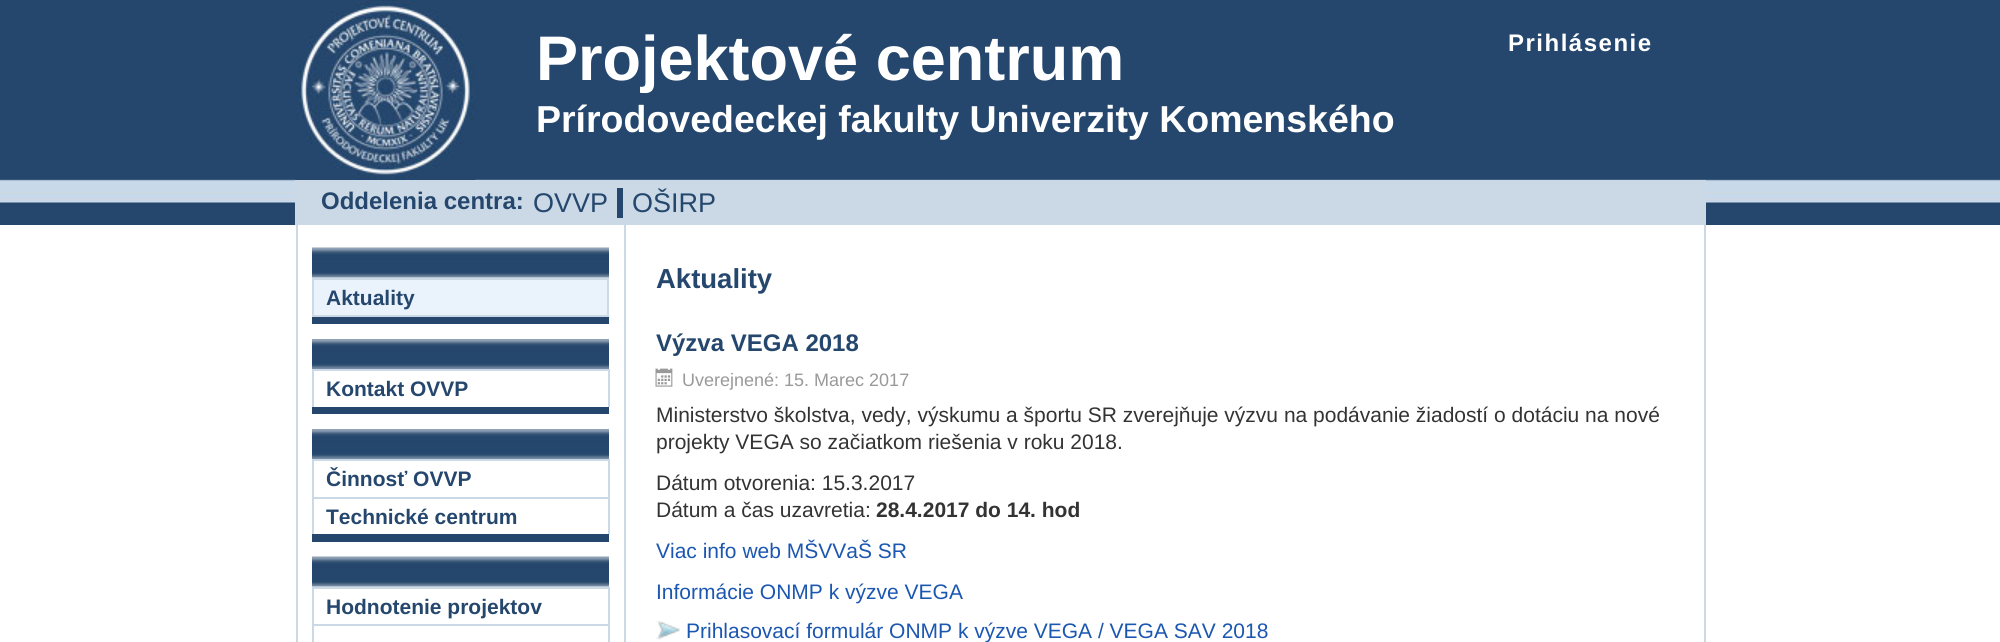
#include <cairo/cairo.h>
#include <math.h>
#include <stddef.h>


static void draw_spaced(cairo_t *cr, double x, double y, const char *s, double letter, double word) {
  cairo_move_to(cr, x, y);
  while (*s) {
    char ch[5] = {0};
    int n = 0;
    do ch[n++] = *s++; while ((*s & 0xC0) == 0x80);
    cairo_show_text(cr, ch);
    cairo_rel_move_to(cr, letter + word * (*ch == ' '), 0);
  }
}

static void draw_image(cairo_t *cr, const char *path, double x, double y, double w, double h) {
  cairo_surface_t *image = cairo_image_surface_create_from_png(path);
  cairo_save(cr);
  cairo_set_source_surface(cr, image, x, y);
  cairo_rectangle(cr, x, y, w, h);
  cairo_fill(cr);
  cairo_restore(cr);
  cairo_surface_destroy(image);
}

static void draw(cairo_t *cr) {
  cairo_set_source_rgb(cr, 1, 1, 1);
  cairo_paint(cr);
  draw_image(cr, "images/1.png", 0, 0, 2000, 225);
  cairo_set_source_rgb(cr, 65 / 255.0, 95 / 255.0, 129 / 255.0);
  cairo_rectangle(cr, 475, 179, 1230, 1);
  cairo_fill(cr);
  draw_image(cr, "images/2.png", 295, 0, 181, 180);
  cairo_set_source_rgb(cr, 203 / 255.0, 217 / 255.0, 230 / 255.0);
  cairo_rectangle(cr, 295, 180, 1411, 45);
  cairo_fill(cr);
  cairo_set_source_rgb(cr, 37 / 255.0, 71 / 255.0, 109 / 255.0);
  cairo_rectangle(cr, 617, 188, 6, 30);
  cairo_fill(cr);
  cairo_set_source_rgb(cr, 203 / 255.0, 217 / 255.0, 230 / 255.0);
  cairo_rectangle(cr, 624, 225, 2, 417);
  cairo_fill(cr);
  cairo_rectangle(cr, 296, 225, 2, 417);
  cairo_fill(cr);
  draw_image(cr, "images/3.png", 312, 247, 297, 31);
  cairo_set_source_rgb(cr, 37 / 255.0, 71 / 255.0, 109 / 255.0);
  cairo_rectangle(cr, 312, 317, 297, 7);
  cairo_fill(cr);
  cairo_set_source_rgb(cr, 234 / 255.0, 243 / 255.0, 251 / 255.0);
  cairo_rectangle(cr, 313, 279, 295, 37);
  cairo_fill_preserve(cr);
  cairo_set_source_rgb(cr, 203 / 255.0, 217 / 255.0, 230 / 255.0);
  cairo_stroke(cr);
  draw_image(cr, "images/4.png", 312, 339, 297, 30);
  cairo_rectangle(cr, 312, 369, 297, 2);
  cairo_fill(cr);
  cairo_rectangle(cr, 608, 369, 2, 38);
  cairo_fill(cr);
  cairo_rectangle(cr, 312, 369, 2, 38);
  cairo_fill(cr);
  draw_image(cr, "images/4.png", 312, 429, 297, 30);
  cairo_set_source_rgb(cr, 37 / 255.0, 71 / 255.0, 109 / 255.0);
  cairo_rectangle(cr, 312, 407, 297, 7);
  cairo_fill(cr);
  cairo_set_source_rgb(cr, 203 / 255.0, 217 / 255.0, 230 / 255.0);
  cairo_rectangle(cr, 312, 459, 297, 2);
  cairo_fill(cr);
  cairo_rectangle(cr, 608, 459, 2, 38);
  cairo_fill(cr);
  cairo_rectangle(cr, 312, 459, 2, 38);
  cairo_fill(cr);
  cairo_rectangle(cr, 312, 497, 297, 2);
  cairo_fill(cr);
  cairo_rectangle(cr, 608, 497, 2, 37);
  cairo_fill(cr);
  cairo_rectangle(cr, 312, 497, 2, 37);
  cairo_fill(cr);
  draw_image(cr, "images/3.png", 312, 556, 297, 31);
  cairo_set_source_rgb(cr, 37 / 255.0, 71 / 255.0, 109 / 255.0);
  cairo_rectangle(cr, 312, 534, 297, 8);
  cairo_fill(cr);
  cairo_set_source_rgb(cr, 203 / 255.0, 217 / 255.0, 230 / 255.0);
  cairo_rectangle(cr, 312, 587, 297, 2);
  cairo_fill(cr);
  cairo_rectangle(cr, 608, 587, 2, 37);
  cairo_fill(cr);
  cairo_rectangle(cr, 312, 587, 2, 37);
  cairo_fill(cr);
  cairo_rectangle(cr, 312, 624, 297, 2);
  cairo_fill(cr);
  cairo_rectangle(cr, 608, 624, 2, 18);
  cairo_fill(cr);
  cairo_rectangle(cr, 312, 624, 2, 18);
  cairo_fill(cr);
  cairo_rectangle(cr, 1704, 225, 2, 417);
  cairo_fill(cr);
  draw_image(cr, "images/5.png", 655, 368, 18, 19);
  draw_image(cr, "images/6.png", 656, 621, 24, 19);
  cairo_select_font_face(cr, "Liberation Sans", CAIRO_FONT_SLANT_NORMAL, CAIRO_FONT_WEIGHT_BOLD);
  cairo_set_font_size(cr, 63);
  cairo_set_source_rgb(cr, 1, 1, 1);
  cairo_move_to(cr, 536, 80);
  cairo_show_text(cr, "Projektové centrum");
  cairo_set_font_size(cr, 37.5);
  cairo_move_to(cr, 536, 132);
  cairo_show_text(cr, "Prírodovedeckej fakulty Univerzity Komenského");
  cairo_set_font_size(cr, 24);
  draw_spaced(cr, 1508, 51, "Prihlásenie", 1.5, 0);
  cairo_set_source_rgb(cr, 37 / 255.0, 71 / 255.0, 109 / 255.0);
  cairo_move_to(cr, 321, 209);
  cairo_show_text(cr, "Oddelenia centra:");
  cairo_select_font_face(cr, "Liberation Sans", CAIRO_FONT_SLANT_NORMAL, CAIRO_FONT_WEIGHT_NORMAL);
  cairo_set_font_size(cr, 27);
  cairo_move_to(cr, 533, 212);
  cairo_show_text(cr, "OVVP");
  cairo_move_to(cr, 632, 212);
  cairo_show_text(cr, "OŠIRP");
  cairo_select_font_face(cr, "Liberation Sans", CAIRO_FONT_SLANT_NORMAL, CAIRO_FONT_WEIGHT_BOLD);
  cairo_set_font_size(cr, 21);
  cairo_move_to(cr, 326, 305);
  cairo_show_text(cr, "Aktuality");
  cairo_move_to(cr, 326, 396);
  cairo_show_text(cr, "Kontakt OVVP");
  cairo_move_to(cr, 326, 486);
  cairo_show_text(cr, "Činnosť OVVP");
  cairo_move_to(cr, 326, 524);
  cairo_show_text(cr, "Technické centrum");
  cairo_move_to(cr, 326, 614);
  cairo_show_text(cr, "Hodnotenie projektov");
  cairo_set_font_size(cr, 27.5);
  cairo_move_to(cr, 656, 288);
  cairo_show_text(cr, "Aktuality");
  cairo_set_font_size(cr, 24);
  cairo_move_to(cr, 656, 351);
  cairo_show_text(cr, "Výzva VEGA 2018");
  cairo_select_font_face(cr, "Liberation Sans", CAIRO_FONT_SLANT_NORMAL, CAIRO_FONT_WEIGHT_NORMAL);
  cairo_set_font_size(cr, 18);
  cairo_set_source_rgb(cr, 153 / 255.0, 153 / 255.0, 153 / 255.0);
  cairo_move_to(cr, 682, 386);
  cairo_show_text(cr, "Uverejnené: 15. Marec 2017");
  cairo_set_font_size(cr, 21);
  cairo_set_source_rgb(cr, 51 / 255.0, 51 / 255.0, 51 / 255.0);
  cairo_move_to(cr, 656, 422);
  cairo_show_text(cr, "Ministerstvo školstva, vedy, výskumu a športu SR zverejňuje výzvu na podávanie žiadostí o dotáciu na nové");
  cairo_move_to(cr, 656, 449);
  cairo_show_text(cr, "projekty VEGA so začiatkom riešenia v roku 2018.");
  cairo_move_to(cr, 656, 490);
  cairo_show_text(cr, "Dátum otvorenia: 15.3.2017");
  cairo_move_to(cr, 656, 517);
  cairo_show_text(cr, "Dátum a čas uzavretia:");
  cairo_select_font_face(cr, "Liberation Sans", CAIRO_FONT_SLANT_NORMAL, CAIRO_FONT_WEIGHT_BOLD);
  cairo_move_to(cr, 876, 517);
  cairo_show_text(cr, "28.4.2017 do 14. hod");
  cairo_select_font_face(cr, "Liberation Sans", CAIRO_FONT_SLANT_NORMAL, CAIRO_FONT_WEIGHT_NORMAL);
  cairo_set_source_rgb(cr, 27 / 255.0, 87 / 255.0, 177 / 255.0);
  cairo_move_to(cr, 656, 558);
  cairo_show_text(cr, "Viac info web MŠVVaŠ SR");
  cairo_move_to(cr, 656, 599);
  cairo_show_text(cr, "Informácie ONMP k výzve VEGA");
  cairo_move_to(cr, 686, 638);
  cairo_show_text(cr, "Prihlasovací formulár ONMP k výzve VEGA / VEGA SAV 2018");
}

int main(void) {
  cairo_surface_t *surface = cairo_image_surface_create(CAIRO_FORMAT_RGB24, 2000, 642);
  cairo_t *cr = cairo_create(surface);
  cairo_font_options_t *options = cairo_font_options_create();
  cairo_font_options_set_hint_metrics(options, CAIRO_HINT_METRICS_OFF);
  cairo_font_options_set_hint_style(options, CAIRO_HINT_STYLE_NONE);
  cairo_set_font_options(cr, options);
  cairo_set_miter_limit(cr, 4);
  draw(cr);
  cairo_surface_write_to_png(surface, "out.png");
  cairo_font_options_destroy(options);
  cairo_destroy(cr);
  cairo_surface_destroy(surface);
  return 0;
}
